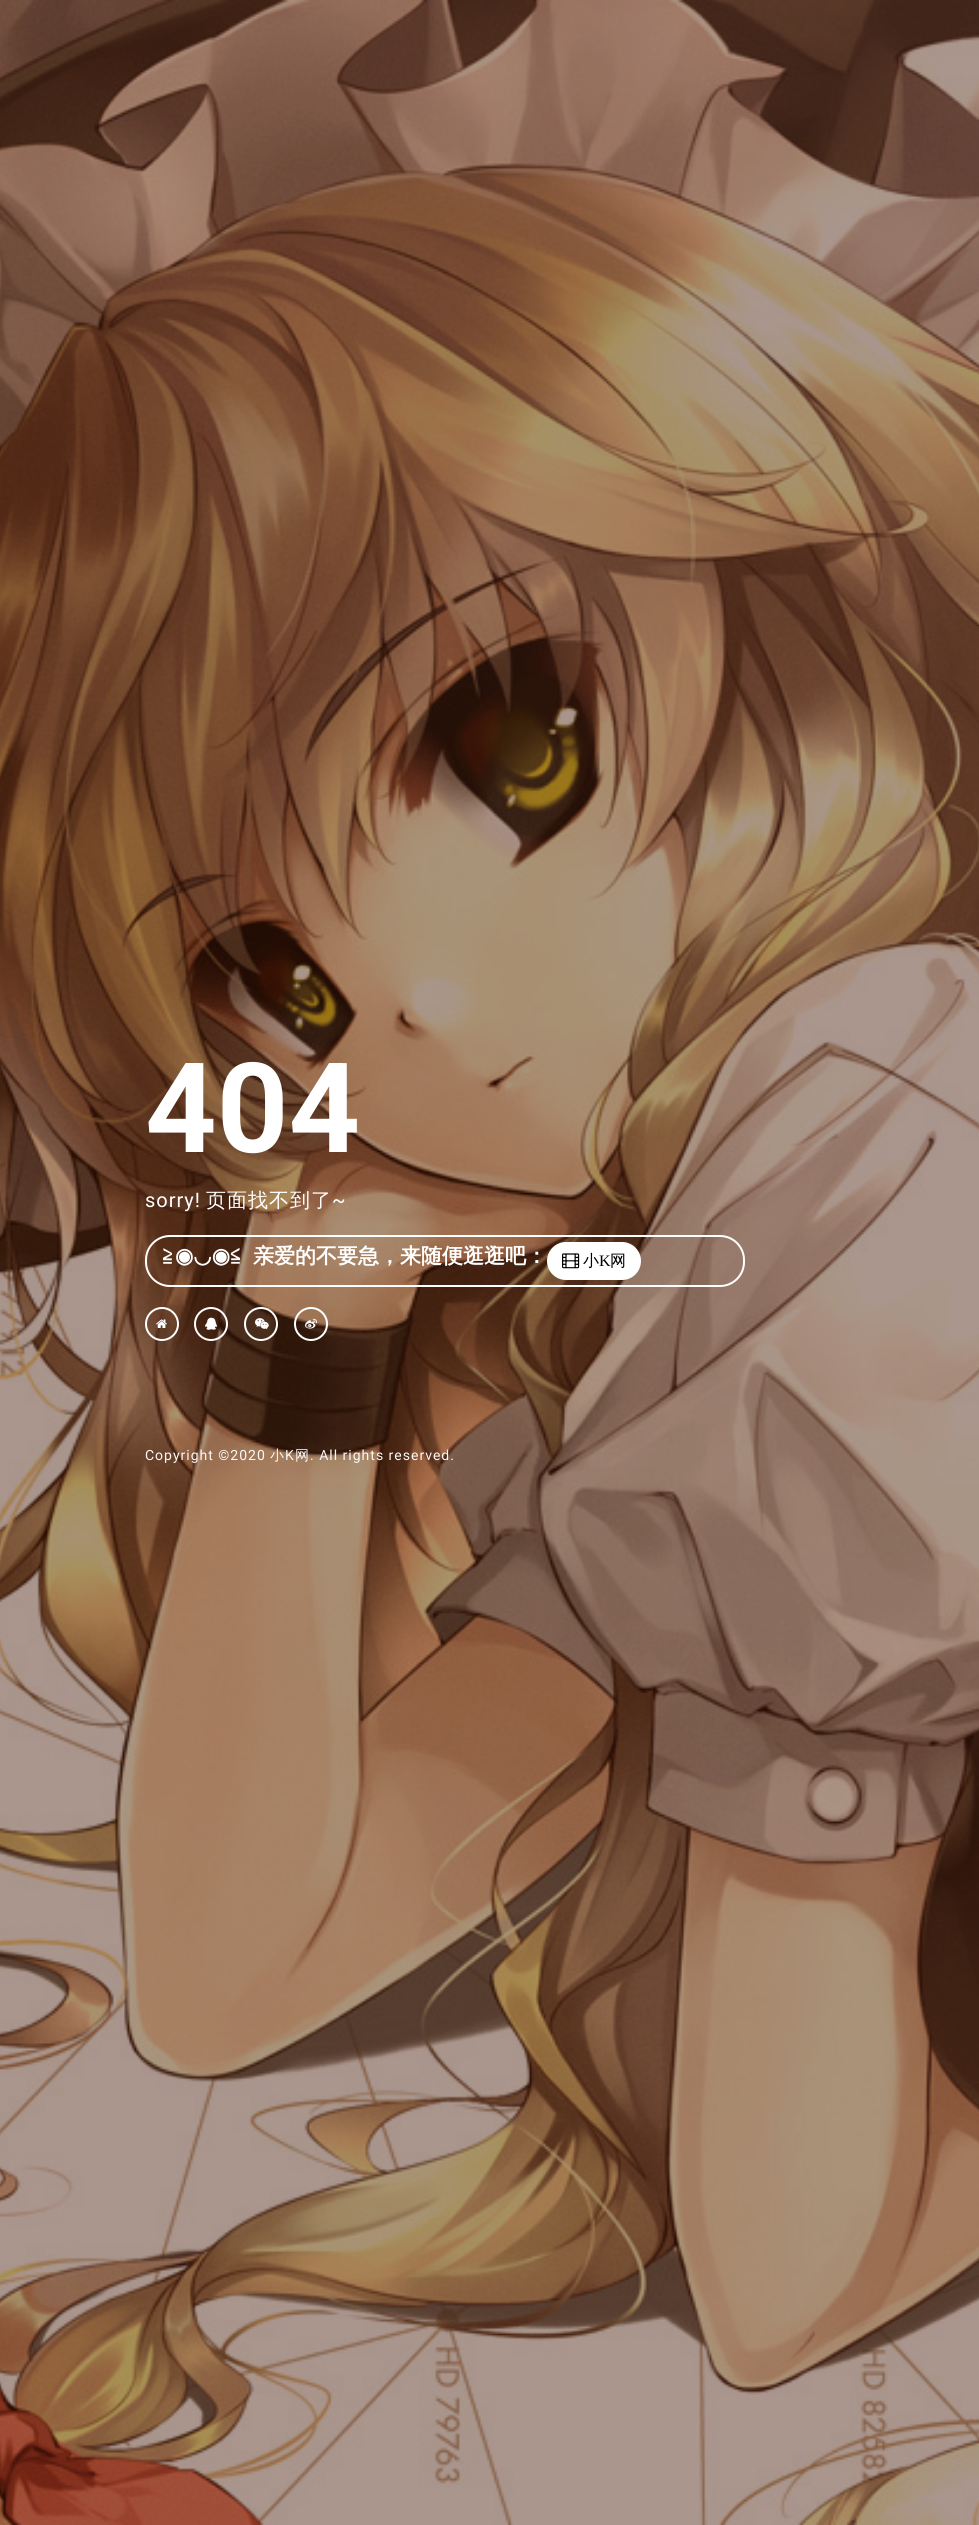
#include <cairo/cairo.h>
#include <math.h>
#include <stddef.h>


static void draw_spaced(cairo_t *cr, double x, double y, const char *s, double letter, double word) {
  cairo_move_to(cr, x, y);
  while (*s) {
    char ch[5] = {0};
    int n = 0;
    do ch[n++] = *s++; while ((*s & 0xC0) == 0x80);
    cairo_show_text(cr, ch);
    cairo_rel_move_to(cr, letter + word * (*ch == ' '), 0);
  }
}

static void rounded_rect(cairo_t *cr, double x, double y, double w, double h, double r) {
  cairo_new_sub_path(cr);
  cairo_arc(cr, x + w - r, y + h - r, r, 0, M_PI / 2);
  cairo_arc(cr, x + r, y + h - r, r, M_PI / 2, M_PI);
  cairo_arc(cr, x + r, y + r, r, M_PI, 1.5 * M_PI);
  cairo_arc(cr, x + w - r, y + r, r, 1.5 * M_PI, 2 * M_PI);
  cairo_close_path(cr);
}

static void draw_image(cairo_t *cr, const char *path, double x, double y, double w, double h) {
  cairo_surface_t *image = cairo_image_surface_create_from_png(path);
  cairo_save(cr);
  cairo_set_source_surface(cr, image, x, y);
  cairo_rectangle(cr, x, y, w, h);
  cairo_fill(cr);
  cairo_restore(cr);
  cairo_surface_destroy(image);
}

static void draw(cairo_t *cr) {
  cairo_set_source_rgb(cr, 1, 1, 1);
  cairo_paint(cr);
  draw_image(cr, "images/1.png", 0, 0, 979, 2525);
  rounded_rect(cr, 146, 1236, 598, 50, 24);
  cairo_set_source_rgb(cr, 1, 1, 1);
  cairo_stroke(cr);
  rounded_rect(cr, 547, 1242, 94, 38, 19);
  cairo_fill(cr);
  draw_image(cr, "images/2.png", 562, 1253, 18, 16);
  cairo_arc(cr, 162, 1324, 16, 0, 2 * M_PI);
  cairo_stroke(cr);
  draw_image(cr, "images/3.png", 156, 1319, 11, 9);
  cairo_arc(cr, 211, 1324, 16, 0, 2 * M_PI);
  cairo_stroke(cr);
  draw_image(cr, "images/4.png", 205, 1317, 12, 13);
  cairo_arc(cr, 261, 1324, 16, 0, 2 * M_PI);
  cairo_stroke(cr);
  draw_image(cr, "images/5.png", 255, 1318, 14, 12);
  cairo_arc(cr, 311, 1324, 16, 0, 2 * M_PI);
  cairo_stroke(cr);
  draw_image(cr, "images/6.png", 305, 1318, 12, 11);
  cairo_select_font_face(cr, "Roboto", CAIRO_FONT_SLANT_NORMAL, CAIRO_FONT_WEIGHT_BOLD);
  cairo_set_font_size(cr, 125);
  cairo_move_to(cr, 145, 1152);
  cairo_show_text(cr, "404");
  cairo_select_font_face(cr, "Roboto", CAIRO_FONT_SLANT_NORMAL, CAIRO_FONT_WEIGHT_NORMAL);
  cairo_set_font_size(cr, 20);
  draw_spaced(cr, 145, 1207, "sorry!", 1, 0);
  cairo_select_font_face(cr, "WenQuanYi Zen Hei Medium", CAIRO_FONT_SLANT_NORMAL, CAIRO_FONT_WEIGHT_NORMAL);
  draw_spaced(cr, 206, 1207, "页面找不到了", 1, 0);
  cairo_select_font_face(cr, "Roboto", CAIRO_FONT_SLANT_NORMAL, CAIRO_FONT_WEIGHT_NORMAL);
  draw_spaced(cr, 332, 1207, "~", 1, 0);
  cairo_select_font_face(cr, "WenQuanYi Zen Hei", CAIRO_FONT_SLANT_NORMAL, CAIRO_FONT_WEIGHT_BOLD);
  cairo_set_font_size(cr, 21);
  cairo_move_to(cr, 162, 1263);
  cairo_show_text(cr, "≧");
  cairo_select_font_face(cr, "DejaVu Sans", CAIRO_FONT_SLANT_NORMAL, CAIRO_FONT_WEIGHT_BOLD);
  cairo_move_to(cr, 175, 1263);
  cairo_show_text(cr, "◉◡◉");
  cairo_select_font_face(cr, "WenQuanYi Zen Hei", CAIRO_FONT_SLANT_NORMAL, CAIRO_FONT_WEIGHT_BOLD);
  cairo_move_to(cr, 230, 1263);
  cairo_show_text(cr, "≦");
  cairo_move_to(cr, 253, 1263);
  cairo_show_text(cr, "亲爱的不要急，来随便逛逛吧：");
  cairo_select_font_face(cr, "WenQuanYi Zen Hei Medium", CAIRO_FONT_SLANT_NORMAL, CAIRO_FONT_WEIGHT_NORMAL);
  cairo_set_font_size(cr, 16);
  cairo_set_source_rgb(cr, 0, 0, 0);
  cairo_move_to(cr, 583, 1266);
  cairo_show_text(cr, "小");
  cairo_select_font_face(cr, "Liberation Serif", CAIRO_FONT_SLANT_NORMAL, CAIRO_FONT_WEIGHT_NORMAL);
  cairo_move_to(cr, 599, 1266);
  cairo_show_text(cr, "K");
  cairo_select_font_face(cr, "WenQuanYi Zen Hei Medium", CAIRO_FONT_SLANT_NORMAL, CAIRO_FONT_WEIGHT_NORMAL);
  cairo_move_to(cr, 610, 1266);
  cairo_show_text(cr, "网");
  cairo_select_font_face(cr, "Roboto", CAIRO_FONT_SLANT_NORMAL, CAIRO_FONT_WEIGHT_NORMAL);
  cairo_set_font_size(cr, 14);
  cairo_set_source_rgb(cr, 249 / 255.0, 249 / 255.0, 249 / 255.0);
  draw_spaced(cr, 145, 1460, "Copyright ©2020", 1, 0);
  cairo_select_font_face(cr, "WenQuanYi Zen Hei Medium", CAIRO_FONT_SLANT_NORMAL, CAIRO_FONT_WEIGHT_NORMAL);
  draw_spaced(cr, 270, 1460, "小", 1, 0);
  cairo_select_font_face(cr, "Roboto", CAIRO_FONT_SLANT_NORMAL, CAIRO_FONT_WEIGHT_NORMAL);
  draw_spaced(cr, 285, 1460, "K", 1, 0);
  cairo_select_font_face(cr, "WenQuanYi Zen Hei Medium", CAIRO_FONT_SLANT_NORMAL, CAIRO_FONT_WEIGHT_NORMAL);
  draw_spaced(cr, 295, 1460, "网", 1, 0);
  cairo_select_font_face(cr, "Roboto", CAIRO_FONT_SLANT_NORMAL, CAIRO_FONT_WEIGHT_NORMAL);
  draw_spaced(cr, 310, 1460, ". All rights reserved.", 1, 0);
}

int main(void) {
  cairo_surface_t *surface = cairo_image_surface_create(CAIRO_FORMAT_RGB24, 979, 2525);
  cairo_t *cr = cairo_create(surface);
  cairo_font_options_t *options = cairo_font_options_create();
  cairo_font_options_set_hint_metrics(options, CAIRO_HINT_METRICS_OFF);
  cairo_font_options_set_hint_style(options, CAIRO_HINT_STYLE_NONE);
  cairo_set_font_options(cr, options);
  cairo_set_miter_limit(cr, 4);
  draw(cr);
  cairo_surface_write_to_png(surface, "out.png");
  cairo_font_options_destroy(options);
  cairo_destroy(cr);
  cairo_surface_destroy(surface);
  return 0;
}
